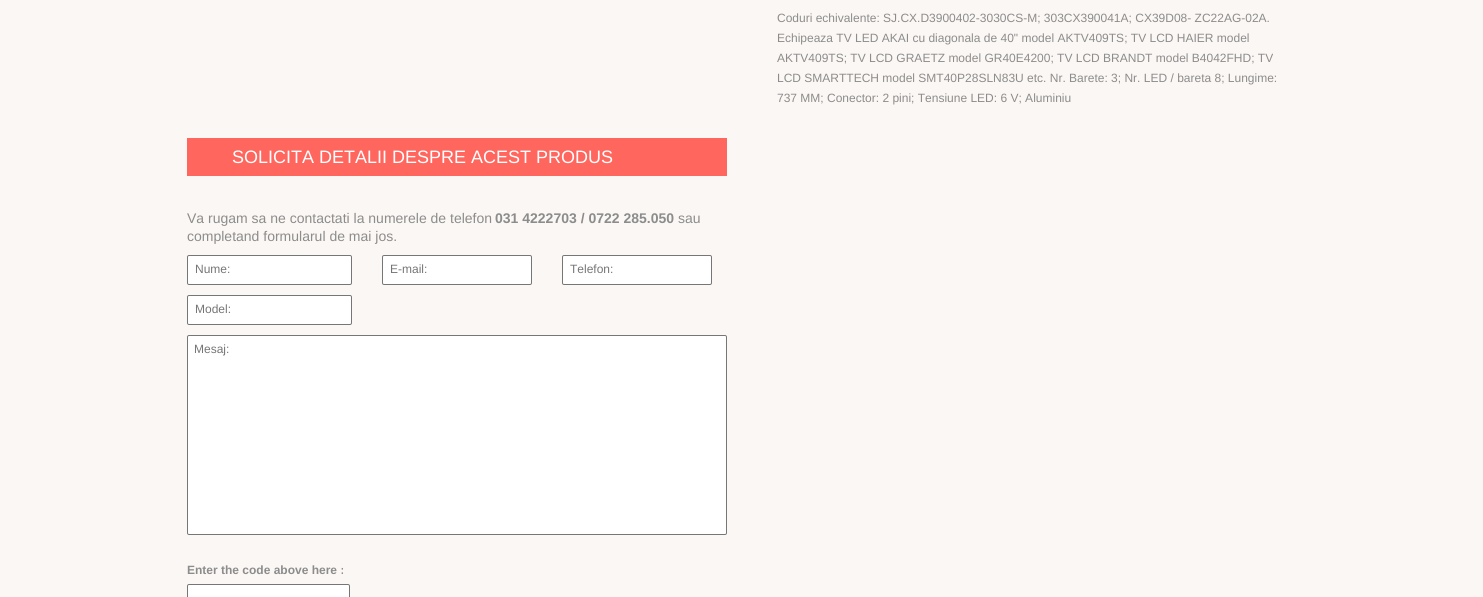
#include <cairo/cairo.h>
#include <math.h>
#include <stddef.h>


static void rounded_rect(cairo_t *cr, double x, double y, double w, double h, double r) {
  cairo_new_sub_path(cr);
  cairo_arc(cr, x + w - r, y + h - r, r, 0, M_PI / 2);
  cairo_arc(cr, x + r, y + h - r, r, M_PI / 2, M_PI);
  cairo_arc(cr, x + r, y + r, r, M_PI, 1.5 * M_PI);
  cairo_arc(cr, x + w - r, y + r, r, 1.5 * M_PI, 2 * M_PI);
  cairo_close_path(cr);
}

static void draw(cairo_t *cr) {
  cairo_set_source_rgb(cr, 251 / 255.0, 247 / 255.0, 244 / 255.0);
  cairo_paint(cr);
  cairo_set_source_rgb(cr, 1, 102 / 255.0, 94 / 255.0);
  cairo_rectangle(cr, 187, 138, 540, 38);
  cairo_fill(cr);
  cairo_set_source_rgb(cr, 1, 1, 1);
  rounded_rect(cr, 187.5, 255.5, 164, 29, 1.5);
  cairo_fill_preserve(cr);
  cairo_set_source_rgb(cr, 118 / 255.0, 118 / 255.0, 118 / 255.0);
  cairo_set_line_width(cr, 1);
  cairo_stroke(cr);
  cairo_set_source_rgb(cr, 1, 1, 1);
  rounded_rect(cr, 382.5, 255.5, 149, 29, 1.5);
  cairo_fill_preserve(cr);
  cairo_set_source_rgb(cr, 118 / 255.0, 118 / 255.0, 118 / 255.0);
  cairo_stroke(cr);
  cairo_set_source_rgb(cr, 1, 1, 1);
  rounded_rect(cr, 562.5, 255.5, 149, 29, 1.5);
  cairo_fill_preserve(cr);
  cairo_set_source_rgb(cr, 118 / 255.0, 118 / 255.0, 118 / 255.0);
  cairo_stroke(cr);
  cairo_set_source_rgb(cr, 1, 1, 1);
  rounded_rect(cr, 187.5, 295.5, 164, 29, 1.5);
  cairo_fill_preserve(cr);
  cairo_set_source_rgb(cr, 118 / 255.0, 118 / 255.0, 118 / 255.0);
  cairo_stroke(cr);
  cairo_set_source_rgb(cr, 1, 1, 1);
  rounded_rect(cr, 187.5, 335.5, 539, 199, 1.5);
  cairo_fill_preserve(cr);
  cairo_set_source_rgb(cr, 118 / 255.0, 118 / 255.0, 118 / 255.0);
  cairo_stroke(cr);
  cairo_set_source_rgb(cr, 1, 1, 1);
  rounded_rect(cr, 187.5, 584.5, 162, 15, 1.5);
  cairo_fill_preserve(cr);
  cairo_set_source_rgb(cr, 118 / 255.0, 118 / 255.0, 118 / 255.0);
  cairo_stroke(cr);
  cairo_select_font_face(cr, "Liberation Sans", CAIRO_FONT_SLANT_NORMAL, CAIRO_FONT_WEIGHT_NORMAL);
  cairo_set_font_size(cr, 12);
  cairo_set_source_rgb(cr, 140 / 255.0, 140 / 255.0, 140 / 255.0);
  cairo_move_to(cr, 777, 22);
  cairo_show_text(cr, "Coduri echivalente: SJ.CX.D3900402-3030CS-M; 303CX390041A; CX39D08- ZC22AG-02A.");
  cairo_move_to(cr, 777, 42);
  cairo_show_text(cr, "Echipeaza TV LED AKAI cu diagonala de 40\" model AKTV409TS; TV LCD HAIER model");
  cairo_move_to(cr, 777, 62);
  cairo_show_text(cr, "AKTV409TS; TV LCD GRAETZ model GR40E4200; TV LCD BRANDT model B4042FHD; TV");
  cairo_move_to(cr, 777, 82);
  cairo_show_text(cr, "LCD SMARTTECH model SMT40P28SLN83U etc. Nr. Barete: 3; Nr. LED / bareta 8; Lungime:");
  cairo_move_to(cr, 777, 102);
  cairo_show_text(cr, "737 MM; Conector: 2 pini; Tensiune LED: 6 V; Aluminiu");
  cairo_set_font_size(cr, 18);
  cairo_set_source_rgb(cr, 1, 1, 1);
  cairo_move_to(cr, 232, 163);
  cairo_show_text(cr, "SOLICITA DETALII DESPRE ACEST PRODUS");
  cairo_set_font_size(cr, 14);
  cairo_set_source_rgb(cr, 140 / 255.0, 140 / 255.0, 140 / 255.0);
  cairo_move_to(cr, 187, 223);
  cairo_show_text(cr, "Va rugam sa ne contactati la numerele de telefon");
  cairo_select_font_face(cr, "Liberation Sans", CAIRO_FONT_SLANT_NORMAL, CAIRO_FONT_WEIGHT_BOLD);
  cairo_move_to(cr, 495, 223);
  cairo_show_text(cr, "031 4222703 / 0722 285.050");
  cairo_select_font_face(cr, "Liberation Sans", CAIRO_FONT_SLANT_NORMAL, CAIRO_FONT_WEIGHT_NORMAL);
  cairo_move_to(cr, 678, 223);
  cairo_show_text(cr, "sau");
  cairo_move_to(cr, 187, 241);
  cairo_show_text(cr, "completand formularul de mai jos.");
  cairo_set_font_size(cr, 12);
  cairo_set_source_rgb(cr, 117 / 255.0, 117 / 255.0, 117 / 255.0);
  cairo_move_to(cr, 195, 273);
  cairo_show_text(cr, "Nume:");
  cairo_move_to(cr, 390, 273);
  cairo_show_text(cr, "E-mail:");
  cairo_move_to(cr, 570, 273);
  cairo_show_text(cr, "Telefon:");
  cairo_move_to(cr, 195, 313);
  cairo_show_text(cr, "Model:");
  cairo_move_to(cr, 194, 353);
  cairo_show_text(cr, "Mesaj:");
  cairo_select_font_face(cr, "Liberation Sans", CAIRO_FONT_SLANT_NORMAL, CAIRO_FONT_WEIGHT_BOLD);
  cairo_set_source_rgb(cr, 140 / 255.0, 140 / 255.0, 140 / 255.0);
  cairo_move_to(cr, 187, 574);
  cairo_show_text(cr, "Enter the code above here :");
}

int main(void) {
  cairo_surface_t *surface = cairo_image_surface_create(CAIRO_FORMAT_RGB24, 1483, 597);
  cairo_t *cr = cairo_create(surface);
  cairo_font_options_t *options = cairo_font_options_create();
  cairo_font_options_set_hint_metrics(options, CAIRO_HINT_METRICS_OFF);
  cairo_font_options_set_hint_style(options, CAIRO_HINT_STYLE_NONE);
  cairo_set_font_options(cr, options);
  cairo_set_miter_limit(cr, 4);
  draw(cr);
  cairo_surface_write_to_png(surface, "out.png");
  cairo_font_options_destroy(options);
  cairo_destroy(cr);
  cairo_surface_destroy(surface);
  return 0;
}
